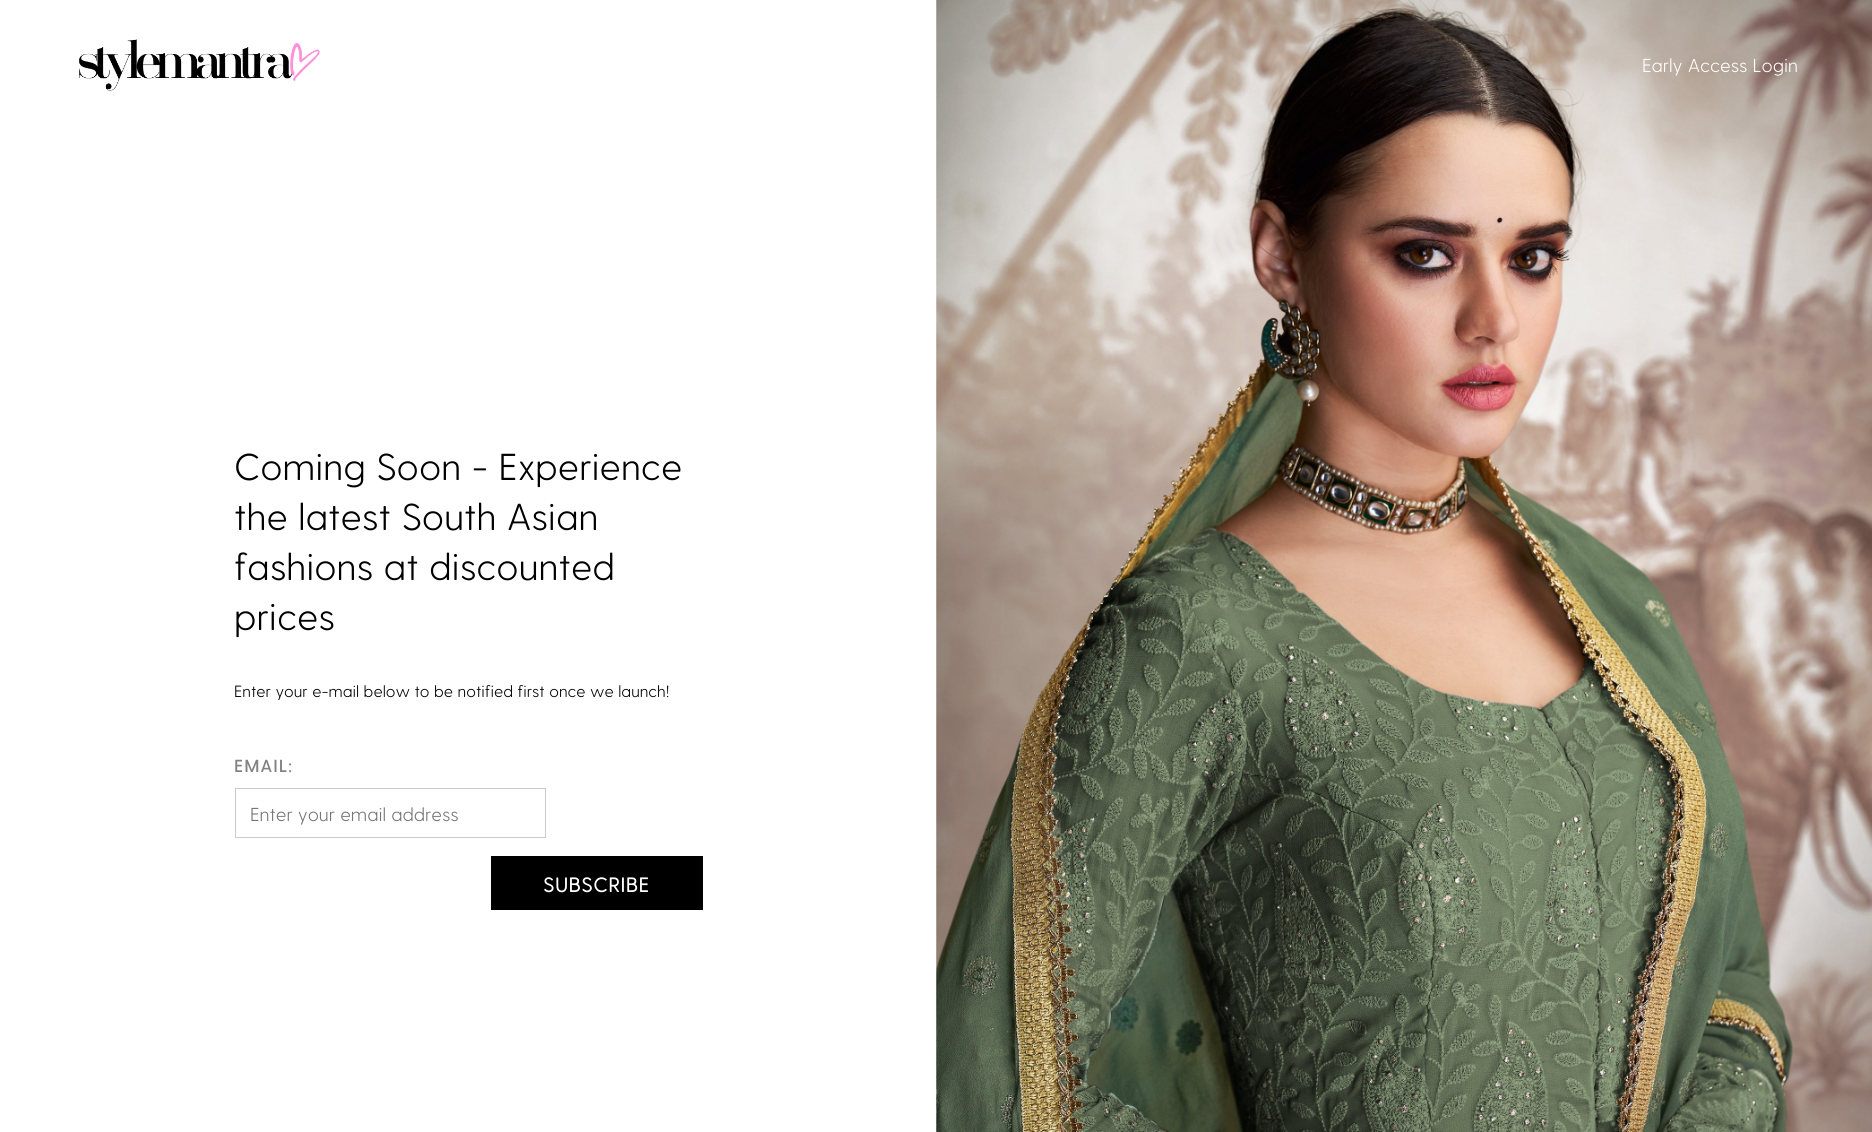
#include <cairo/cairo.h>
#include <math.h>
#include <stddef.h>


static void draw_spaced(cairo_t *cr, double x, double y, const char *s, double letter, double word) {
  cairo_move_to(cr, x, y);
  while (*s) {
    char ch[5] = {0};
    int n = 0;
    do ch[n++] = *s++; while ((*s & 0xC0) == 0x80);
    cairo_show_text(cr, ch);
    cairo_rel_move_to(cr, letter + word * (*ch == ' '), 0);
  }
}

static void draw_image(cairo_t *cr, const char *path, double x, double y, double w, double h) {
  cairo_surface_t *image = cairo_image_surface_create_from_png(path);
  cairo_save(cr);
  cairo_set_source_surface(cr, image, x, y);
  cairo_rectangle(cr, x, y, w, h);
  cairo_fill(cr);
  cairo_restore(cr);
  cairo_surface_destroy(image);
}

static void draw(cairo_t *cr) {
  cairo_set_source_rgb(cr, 1, 1, 1);
  cairo_paint(cr);
  draw_image(cr, "images/1.png", 79, 39, 241, 52);
  cairo_rectangle(cr, 235.5, 788.5, 310, 49);
  cairo_set_source_rgb(cr, 203 / 255.0, 203 / 255.0, 203 / 255.0);
  cairo_set_line_width(cr, 1);
  cairo_stroke(cr);
  cairo_set_source_rgb(cr, 0, 0, 0);
  cairo_rectangle(cr, 491, 856, 212, 54);
  cairo_fill(cr);
  draw_image(cr, "images/2.png", 936, 0, 936, 1132);
  cairo_select_font_face(cr, "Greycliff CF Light", CAIRO_FONT_SLANT_NORMAL, CAIRO_FONT_WEIGHT_NORMAL);
  cairo_set_font_size(cr, 18.75);
  cairo_set_source_rgb(cr, 1, 1, 1);
  cairo_move_to(cr, 1642, 72);
  cairo_show_text(cr, "Early Access Login");
  cairo_set_font_size(cr, 37.5);
  cairo_set_source_rgb(cr, 0, 0, 0);
  cairo_move_to(cr, 234, 480);
  cairo_show_text(cr, "Coming Soon - Experience");
  cairo_move_to(cr, 234, 530);
  cairo_show_text(cr, "the latest South Asian");
  cairo_move_to(cr, 234, 580);
  cairo_show_text(cr, "fashions at discounted");
  cairo_move_to(cr, 234, 630);
  cairo_show_text(cr, "prices");
  cairo_set_font_size(cr, 16.25);
  cairo_move_to(cr, 234, 697);
  cairo_show_text(cr, "Enter your e-mail below to be notified first once we launch!");
  cairo_select_font_face(cr, "Greycliff CF SemiBold", CAIRO_FONT_SLANT_NORMAL, CAIRO_FONT_WEIGHT_NORMAL);
  cairo_set_font_size(cr, 17.5);
  cairo_set_source_rgb(cr, 130 / 255.0, 130 / 255.0, 130 / 255.0);
  draw_spaced(cr, 234, 772, "EMAIL:", 1, 0);
  cairo_select_font_face(cr, "Greycliff CF Light", CAIRO_FONT_SLANT_NORMAL, CAIRO_FONT_WEIGHT_NORMAL);
  cairo_set_font_size(cr, 18.75);
  cairo_set_source_rgb(cr, 117 / 255.0, 117 / 255.0, 117 / 255.0);
  cairo_move_to(cr, 250, 821);
  cairo_show_text(cr, "Enter your email address");
  cairo_select_font_face(cr, "Greycliff CF", CAIRO_FONT_SLANT_NORMAL, CAIRO_FONT_WEIGHT_BOLD);
  cairo_set_font_size(cr, 20);
  cairo_set_source_rgb(cr, 1, 1, 1);
  draw_spaced(cr, 543, 892, "SUBSCRIBE", 1, 0);
}

int main(void) {
  cairo_surface_t *surface = cairo_image_surface_create(CAIRO_FORMAT_RGB24, 1872, 1132);
  cairo_t *cr = cairo_create(surface);
  cairo_font_options_t *options = cairo_font_options_create();
  cairo_font_options_set_hint_metrics(options, CAIRO_HINT_METRICS_OFF);
  cairo_font_options_set_hint_style(options, CAIRO_HINT_STYLE_NONE);
  cairo_set_font_options(cr, options);
  cairo_set_miter_limit(cr, 4);
  draw(cr);
  cairo_surface_write_to_png(surface, "out.png");
  cairo_font_options_destroy(options);
  cairo_destroy(cr);
  cairo_surface_destroy(surface);
  return 0;
}
